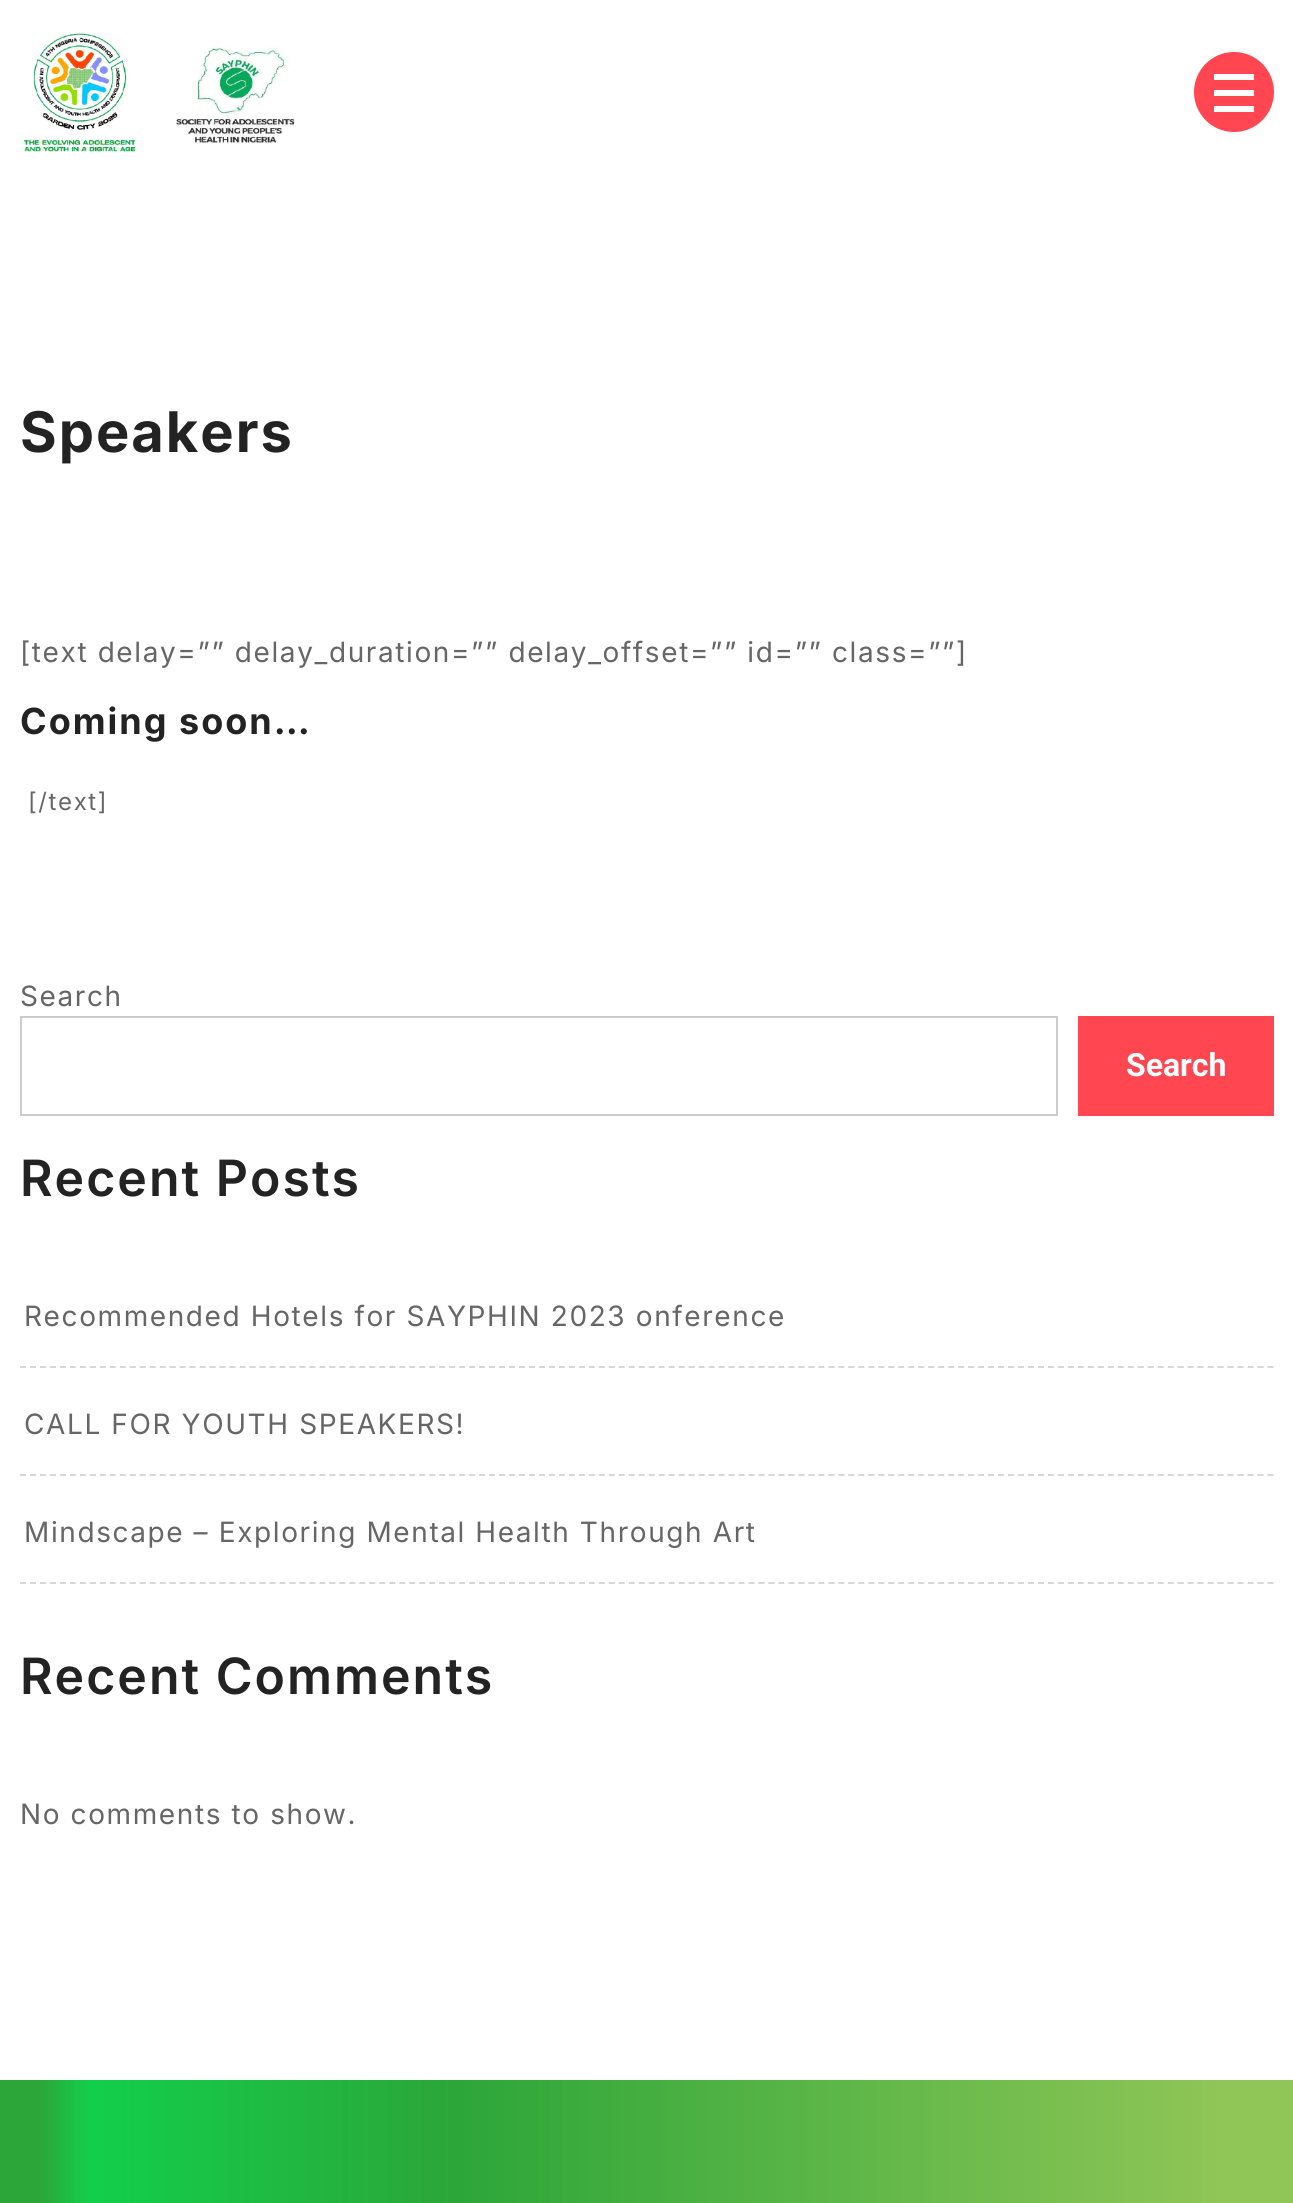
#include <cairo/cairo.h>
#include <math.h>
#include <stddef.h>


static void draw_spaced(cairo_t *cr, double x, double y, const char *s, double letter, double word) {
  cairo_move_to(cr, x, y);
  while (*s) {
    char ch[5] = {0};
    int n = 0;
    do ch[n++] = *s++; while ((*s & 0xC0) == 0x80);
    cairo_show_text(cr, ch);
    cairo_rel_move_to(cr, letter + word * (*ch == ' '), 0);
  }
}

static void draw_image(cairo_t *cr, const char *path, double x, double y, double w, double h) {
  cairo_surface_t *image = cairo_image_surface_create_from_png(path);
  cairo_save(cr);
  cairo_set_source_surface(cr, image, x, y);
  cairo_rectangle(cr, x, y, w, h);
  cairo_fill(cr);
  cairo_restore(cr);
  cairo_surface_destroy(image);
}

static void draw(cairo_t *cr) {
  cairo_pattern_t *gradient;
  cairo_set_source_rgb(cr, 1, 1, 1);
  cairo_paint(cr);
  draw_image(cr, "images/1.png", 22, 33, 273, 119);
  cairo_set_source_rgb(cr, 1, 70 / 255.0, 81 / 255.0);
  cairo_arc(cr, 1234, 92, 38, 0, 2 * M_PI);
  cairo_fill_preserve(cr);
  cairo_set_line_width(cr, 4);
  cairo_stroke(cr);
  cairo_set_source_rgb(cr, 1, 1, 1);
  cairo_rectangle(cr, 1214, 74, 40, 6);
  cairo_fill(cr);
  cairo_rectangle(cr, 1214, 90, 40, 6);
  cairo_fill(cr);
  cairo_rectangle(cr, 1214, 106, 40, 6);
  cairo_fill(cr);
  cairo_rectangle(cr, 21, 1017, 1036, 98);
  cairo_set_source_rgb(cr, 204 / 255.0, 204 / 255.0, 204 / 255.0);
  cairo_set_line_width(cr, 2);
  cairo_stroke(cr);
  cairo_set_source_rgb(cr, 1, 70 / 255.0, 81 / 255.0);
  cairo_rectangle(cr, 1078, 1016, 196, 100);
  cairo_fill(cr);
  cairo_new_path(cr);
  cairo_move_to(cr, 20, 1367);
  cairo_line_to(cr, 1274, 1367);
  cairo_set_source_rgb(cr, 215 / 255.0, 215 / 255.0, 215 / 255.0);
  cairo_set_dash(cr, (double[]){6, 3.98}, 2, 0);
  cairo_stroke(cr);
  cairo_new_path(cr);
  cairo_move_to(cr, 20, 1475);
  cairo_line_to(cr, 1274, 1475);
  cairo_stroke(cr);
  cairo_new_path(cr);
  cairo_move_to(cr, 20, 1583);
  cairo_line_to(cr, 1274, 1583);
  cairo_stroke(cr);
  gradient = cairo_pattern_create_linear(0, 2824, 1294, 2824);
  cairo_pattern_add_color_stop_rgba(gradient, 0, 44 / 255.0, 166 / 255.0, 57 / 255.0, 1);
  cairo_pattern_add_color_stop_rgba(gradient, 0.03, 44 / 255.0, 166 / 255.0, 57 / 255.0, 1);
  cairo_pattern_add_color_stop_rgba(gradient, 0.07, 18 / 255.0, 207 / 255.0, 75 / 255.0, 1);
  cairo_pattern_add_color_stop_rgba(gradient, 0.35, 44 / 255.0, 166 / 255.0, 57 / 255.0, 1);
  cairo_pattern_add_color_stop_rgba(gradient, 0.95, 144 / 255.0, 198 / 255.0, 87 / 255.0, 1);
  cairo_set_source(cr, gradient);
  cairo_pattern_destroy(gradient);
  cairo_rectangle(cr, 0, 2080, 1293, 123);
  cairo_fill(cr);
  cairo_select_font_face(cr, "Inter", CAIRO_FONT_SLANT_NORMAL, CAIRO_FONT_WEIGHT_BOLD);
  cairo_set_font_size(cr, 56);
  cairo_set_source_rgb(cr, 35 / 255.0, 35 / 255.0, 35 / 255.0);
  draw_spaced(cr, 20, 452, "Speakers", 2, 0);
  cairo_select_font_face(cr, "Inter", CAIRO_FONT_SLANT_NORMAL, CAIRO_FONT_WEIGHT_NORMAL);
  cairo_set_font_size(cr, 28);
  cairo_set_source_rgb(cr, 102 / 255.0, 102 / 255.0, 102 / 255.0);
  draw_spaced(cr, 20, 662, "[text delay=”” delay_duration=”” delay_offset=”” id=”” class=””]", 1.6, 0);
  cairo_select_font_face(cr, "Inter", CAIRO_FONT_SLANT_NORMAL, CAIRO_FONT_WEIGHT_BOLD);
  cairo_set_font_size(cr, 36);
  cairo_set_source_rgb(cr, 35 / 255.0, 35 / 255.0, 35 / 255.0);
  draw_spaced(cr, 20, 734, "Coming soon…", 2, 0);
  cairo_select_font_face(cr, "Inter", CAIRO_FONT_SLANT_NORMAL, CAIRO_FONT_WEIGHT_NORMAL);
  cairo_set_font_size(cr, 24);
  cairo_set_source_rgb(cr, 102 / 255.0, 102 / 255.0, 102 / 255.0);
  draw_spaced(cr, 28, 810, "[/text]", 1.6, 0);
  cairo_set_font_size(cr, 28);
  draw_spaced(cr, 20, 1006, "Search", 1.6, 0);
  cairo_select_font_face(cr, "Roboto", CAIRO_FONT_SLANT_NORMAL, CAIRO_FONT_WEIGHT_BOLD);
  cairo_set_font_size(cr, 32);
  cairo_set_source_rgb(cr, 1, 1, 1);
  cairo_move_to(cr, 1126, 1076);
  cairo_show_text(cr, "Search");
  cairo_select_font_face(cr, "Inter SemiBold", CAIRO_FONT_SLANT_NORMAL, CAIRO_FONT_WEIGHT_NORMAL);
  cairo_set_font_size(cr, 50);
  cairo_set_source_rgb(cr, 35 / 255.0, 35 / 255.0, 35 / 255.0);
  draw_spaced(cr, 20, 1196, "Recent Posts", 2, 0);
  cairo_select_font_face(cr, "Inter", CAIRO_FONT_SLANT_NORMAL, CAIRO_FONT_WEIGHT_NORMAL);
  cairo_set_font_size(cr, 28);
  cairo_set_source_rgb(cr, 102 / 255.0, 102 / 255.0, 102 / 255.0);
  draw_spaced(cr, 24, 1326, "Recommended Hotels for SAYPHIN 2023 onference", 1.6, 0);
  draw_spaced(cr, 24, 1434, "CALL FOR YOUTH SPEAKERS!", 1.6, 0);
  draw_spaced(cr, 24, 1542, "Mindscape – Exploring Mental Health Through Art", 1.6, 0);
  cairo_select_font_face(cr, "Inter SemiBold", CAIRO_FONT_SLANT_NORMAL, CAIRO_FONT_WEIGHT_NORMAL);
  cairo_set_font_size(cr, 50);
  cairo_set_source_rgb(cr, 35 / 255.0, 35 / 255.0, 35 / 255.0);
  draw_spaced(cr, 20, 1694, "Recent Comments", 2, 0);
  cairo_select_font_face(cr, "Inter", CAIRO_FONT_SLANT_NORMAL, CAIRO_FONT_WEIGHT_NORMAL);
  cairo_set_font_size(cr, 28);
  cairo_set_source_rgb(cr, 102 / 255.0, 102 / 255.0, 102 / 255.0);
  draw_spaced(cr, 20, 1824, "No comments to show.", 1.6, 0);
}

int main(void) {
  cairo_surface_t *surface = cairo_image_surface_create(CAIRO_FORMAT_RGB24, 1293, 2203);
  cairo_t *cr = cairo_create(surface);
  cairo_font_options_t *options = cairo_font_options_create();
  cairo_font_options_set_hint_metrics(options, CAIRO_HINT_METRICS_OFF);
  cairo_font_options_set_hint_style(options, CAIRO_HINT_STYLE_NONE);
  cairo_set_font_options(cr, options);
  cairo_set_miter_limit(cr, 4);
  draw(cr);
  cairo_surface_write_to_png(surface, "out.png");
  cairo_font_options_destroy(options);
  cairo_destroy(cr);
  cairo_surface_destroy(surface);
  return 0;
}
